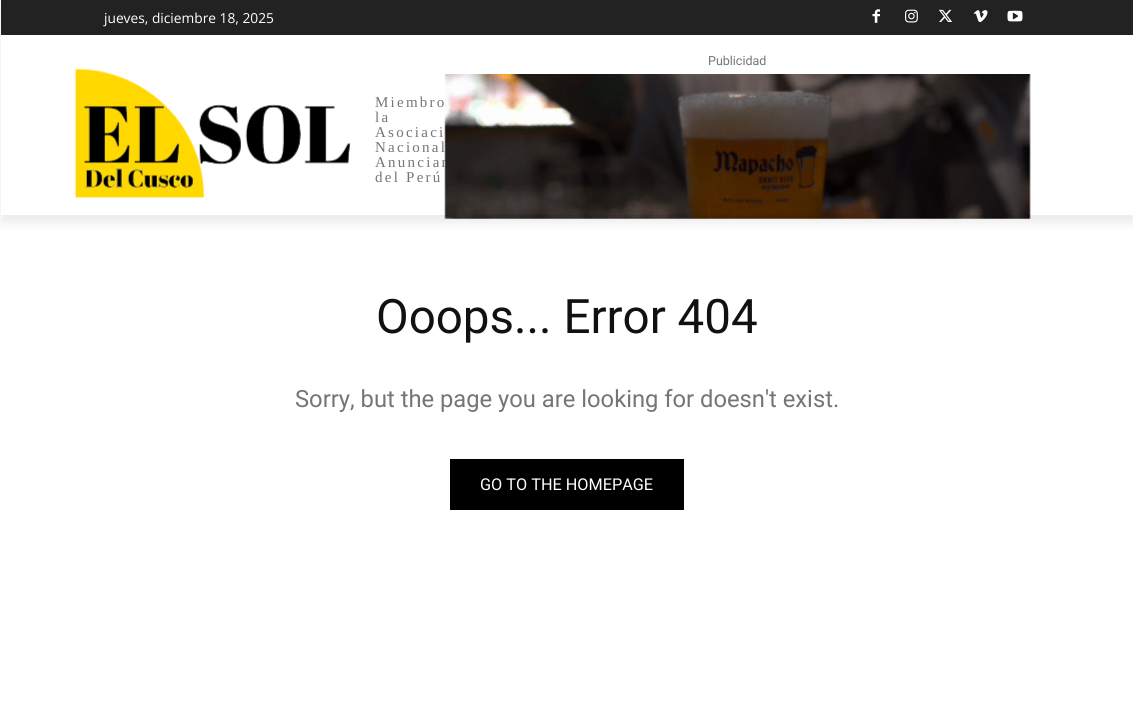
#include <cairo/cairo.h>
#include <math.h>
#include <stddef.h>


static void draw_spaced(cairo_t *cr, double x, double y, const char *s, double letter, double word) {
  cairo_move_to(cr, x, y);
  while (*s) {
    char ch[5] = {0};
    int n = 0;
    do ch[n++] = *s++; while ((*s & 0xC0) == 0x80);
    cairo_show_text(cr, ch);
    cairo_rel_move_to(cr, letter + word * (*ch == ' '), 0);
  }
}

static void rounded_rect(cairo_t *cr, double x, double y, double w, double h, double r) {
  cairo_new_sub_path(cr);
  cairo_arc(cr, x + w - r, y + h - r, r, 0, M_PI / 2);
  cairo_arc(cr, x + r, y + h - r, r, M_PI / 2, M_PI);
  cairo_arc(cr, x + r, y + r, r, M_PI, 1.5 * M_PI);
  cairo_arc(cr, x + w - r, y + r, r, 1.5 * M_PI, 2 * M_PI);
  cairo_close_path(cr);
}

static void draw_shadow(cairo_t *cr, double x, double y, double w, double h, double r, double blur, double alpha) {
  cairo_push_group_with_content(cr, CAIRO_CONTENT_ALPHA);
  cairo_set_operator(cr, CAIRO_OPERATOR_SOURCE);
  for (int i = 15; i >= -15 && fmin(w, h) + blur * i / 3 > 0; i -= 2) {
    double e = blur * i / 6;
    cairo_set_source_rgba(cr, 0, 0, 0, alpha * erfc((i - 1) / 8.5) / 2);
    rounded_rect(cr, x - e, y - e, w + 2 * e, h + 2 * e, fmax(0, fmin(r + e + blur * .6, fmin(w, h) / 2 + e)));
    cairo_fill(cr);
  }
  cairo_pattern_t *soft = cairo_pop_group(cr);
  cairo_mask(cr, soft);
  cairo_pattern_destroy(soft);
}

static void draw_image(cairo_t *cr, const char *path, double x, double y, double w, double h) {
  cairo_surface_t *image = cairo_image_surface_create_from_png(path);
  cairo_save(cr);
  cairo_set_source_surface(cr, image, x, y);
  cairo_rectangle(cr, x, y, w, h);
  cairo_fill(cr);
  cairo_restore(cr);
  cairo_surface_destroy(image);
}

static void draw(cairo_t *cr) {
  cairo_set_source_rgb(cr, 1, 1, 1);
  cairo_paint(cr);
  cairo_set_source_rgb(cr, 34 / 255.0, 34 / 255.0, 34 / 255.0);
  cairo_rectangle(cr, 1, 0, 1132, 35);
  cairo_fill(cr);
  draw_image(cr, "images/1.png", 872, 9, 8, 14);
  draw_image(cr, "images/2.png", 905, 9, 13, 14);
  draw_image(cr, "images/3.png", 938, 9, 15, 13);
  draw_image(cr, "images/4.png", 973, 10, 15, 13);
  draw_image(cr, "images/5.png", 1007, 10, 16, 12);
  draw_image(cr, "images/7.png", 74, 68, 277, 130);
  cairo_set_source_rgb(cr, 0, 0, 0);
  cairo_rectangle(cr, 450, 459, 234, 51);
  cairo_fill(cr);
  cairo_select_font_face(cr, "Open Sans", CAIRO_FONT_SLANT_NORMAL, CAIRO_FONT_WEIGHT_NORMAL);
  cairo_set_font_size(cr, 13.75);
  cairo_set_source_rgb(cr, 1, 1, 1);
  cairo_move_to(cr, 104, 23);
  cairo_show_text(cr, "jueves, diciembre 18, 2025");
  cairo_select_font_face(cr, "Roboto", CAIRO_FONT_SLANT_NORMAL, CAIRO_FONT_WEIGHT_NORMAL);
  cairo_set_font_size(cr, 12.5);
  cairo_set_source_rgb(cr, 117 / 255.0, 117 / 255.0, 117 / 255.0);
  cairo_move_to(cr, 708, 65);
  cairo_show_text(cr, "Publicidad");
  cairo_select_font_face(cr, "Liberation Serif", CAIRO_FONT_SLANT_NORMAL, CAIRO_FONT_WEIGHT_NORMAL);
  cairo_set_font_size(cr, 15);
  draw_spaced(cr, 375, 107, "Miembro", 2.25, 0);
  draw_spaced(cr, 375, 122, "la", 2.25, 0);
  draw_spaced(cr, 375, 137, "Asociaci", 2.25, 0);
  draw_spaced(cr, 375, 152, "Nacional", 2.25, 0);
  draw_spaced(cr, 375, 167, "Anuncian", 2.25, 0);
  draw_image(cr, "images/6.png", 444, 74, 587, 145);
  cairo_save(cr);
  cairo_set_fill_rule(cr, CAIRO_FILL_RULE_EVEN_ODD);
  cairo_new_path(cr);
  cairo_move_to(cr, 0, 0);
  cairo_line_to(cr, 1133, 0);
  cairo_line_to(cr, 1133, 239);
  cairo_line_to(cr, 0, 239);
  cairo_close_path(cr);
  cairo_move_to(cr, 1, 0);
  cairo_line_to(cr, 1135, 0);
  cairo_line_to(cr, 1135, 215);
  cairo_line_to(cr, 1, 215);
  cairo_close_path(cr);
  cairo_clip(cr);
  cairo_set_source_rgb(cr, 0, 0, 0);
  draw_shadow(cr, 1, 8, 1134, 215, 0, 5, 0.08);
  cairo_restore(cr);
  draw_spaced(cr, 375, 182, "del Perú", 2.25, 0);
  cairo_select_font_face(cr, "Roboto", CAIRO_FONT_SLANT_NORMAL, CAIRO_FONT_WEIGHT_NORMAL);
  cairo_set_font_size(cr, 47.5);
  cairo_set_source_rgb(cr, 17 / 255.0, 17 / 255.0, 17 / 255.0);
  cairo_move_to(cr, 376, 333);
  cairo_show_text(cr, "Ooops... Error 404");
  cairo_set_font_size(cr, 23.75);
  cairo_set_source_rgb(cr, 117 / 255.0, 117 / 255.0, 117 / 255.0);
  cairo_move_to(cr, 295, 407);
  cairo_show_text(cr, "Sorry, but the page you are looking for doesn't exist.");
  cairo_set_font_size(cr, 16.25);
  cairo_set_source_rgb(cr, 1, 1, 1);
  cairo_move_to(cr, 480, 490);
  cairo_show_text(cr, "GO TO THE HOMEPAGE");
}

int main(void) {
  cairo_surface_t *surface = cairo_image_surface_create(CAIRO_FORMAT_RGB24, 1133, 716);
  cairo_t *cr = cairo_create(surface);
  cairo_font_options_t *options = cairo_font_options_create();
  cairo_font_options_set_hint_metrics(options, CAIRO_HINT_METRICS_OFF);
  cairo_font_options_set_hint_style(options, CAIRO_HINT_STYLE_NONE);
  cairo_set_font_options(cr, options);
  cairo_set_miter_limit(cr, 4);
  draw(cr);
  cairo_surface_write_to_png(surface, "out.png");
  cairo_font_options_destroy(options);
  cairo_destroy(cr);
  cairo_surface_destroy(surface);
  return 0;
}
